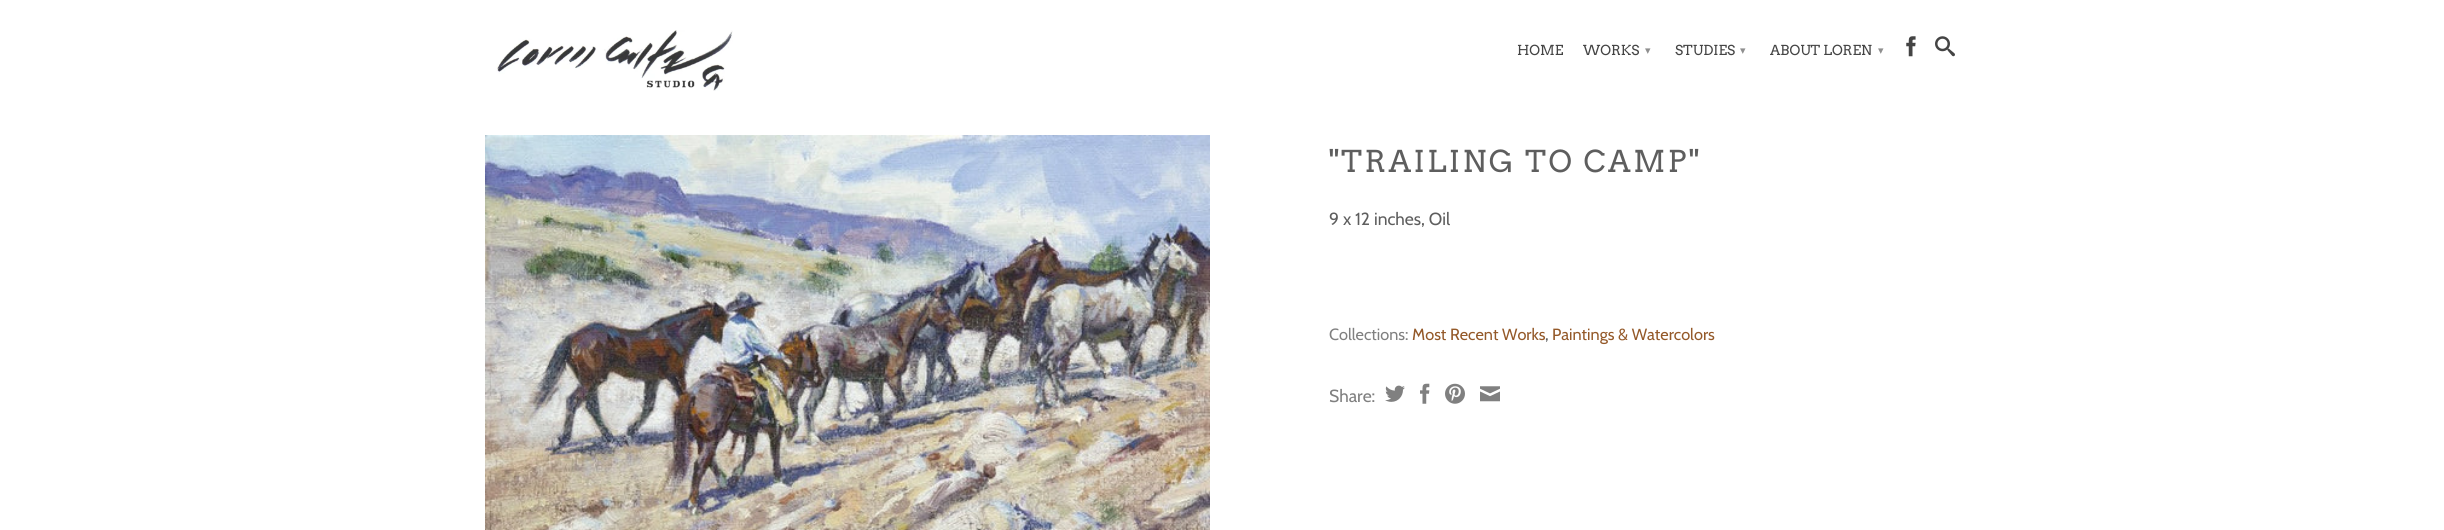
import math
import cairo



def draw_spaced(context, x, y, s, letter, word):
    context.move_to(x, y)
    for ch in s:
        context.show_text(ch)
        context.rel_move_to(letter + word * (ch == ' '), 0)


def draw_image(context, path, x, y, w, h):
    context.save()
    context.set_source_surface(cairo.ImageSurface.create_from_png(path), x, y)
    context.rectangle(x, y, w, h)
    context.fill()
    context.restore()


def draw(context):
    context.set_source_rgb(1, 1, 1)
    context.paint()
    draw_image(context, "images/1.png", 496, 30, 237, 61)
    draw_image(context, "images/2.png", 1906, 36, 10, 21)
    draw_image(context, "images/3.png", 1935, 36, 20, 21)
    draw_image(context, "images/4.png", 485, 135, 725, 395)
    draw_image(context, "images/5.png", 1385, 385, 20, 17)
    draw_image(context, "images/6.png", 1420, 383, 10, 21)
    draw_image(context, "images/7.png", 1445, 383, 20, 21)
    draw_image(context, "images/8.png", 1480, 386, 20, 16)
    context.select_font_face("Arvo")
    context.set_font_size(13.75)
    context.set_source_rgb(68 / 255, 68 / 255, 68 / 255)
    context.move_to(1517, 55)
    context.show_text("HOME")
    context.move_to(1583, 55)
    context.show_text("WORKS")
    context.select_font_face("DejaVu Sans")
    context.set_font_size(11)
    context.set_source_rgb(143 / 255, 143 / 255, 143 / 255)
    context.move_to(1645, 54)
    context.show_text("▾")
    context.select_font_face("Arvo")
    context.set_font_size(13.75)
    context.set_source_rgb(68 / 255, 68 / 255, 68 / 255)
    context.move_to(1675, 55)
    context.show_text("STUDIES")
    context.select_font_face("DejaVu Sans")
    context.set_font_size(11)
    context.set_source_rgb(143 / 255, 143 / 255, 143 / 255)
    context.move_to(1740, 54)
    context.show_text("▾")
    context.select_font_face("Arvo")
    context.set_font_size(13.75)
    context.set_source_rgb(68 / 255, 68 / 255, 68 / 255)
    context.move_to(1770, 55)
    context.show_text("ABOUT LOREN")
    context.select_font_face("DejaVu Sans")
    context.set_font_size(11)
    context.set_source_rgb(143 / 255, 143 / 255, 143 / 255)
    context.move_to(1878, 54)
    context.show_text("▾")
    context.select_font_face("Arvo")
    context.set_font_size(30)
    context.set_source_rgb(94 / 255, 94 / 255, 94 / 255)
    draw_spaced(context, 1329, 172, "\"TRAILING TO CAMP\"", 2.5, 0)
    context.select_font_face("Cabin")
    context.set_font_size(17.5)
    context.move_to(1329, 225)
    context.show_text("9 x 12 inches, Oil")
    context.set_font_size(16.25)
    context.set_source_rgb(128 / 255, 128 / 255, 128 / 255)
    context.move_to(1329, 340)
    context.show_text("Collections:")
    context.set_source_rgb(148 / 255, 89 / 255, 41 / 255)
    context.move_to(1412, 340)
    context.show_text("Most Recent Works")
    context.set_source_rgb(94 / 255, 94 / 255, 94 / 255)
    context.move_to(1545, 340)
    context.show_text(",")
    context.set_source_rgb(148 / 255, 89 / 255, 41 / 255)
    context.move_to(1552, 340)
    context.show_text("Paintings & Watercolors")
    context.set_font_size(17.5)
    context.set_source_rgb(128 / 255, 128 / 255, 128 / 255)
    context.move_to(1329, 402)
    context.show_text("Share:")


surface = cairo.ImageSurface(cairo.Format.RGB24, 2444, 530)
context = cairo.Context(surface)
options = cairo.FontOptions()
options.set_hint_metrics(cairo.HintMetrics.OFF)
options.set_hint_style(cairo.HintStyle.NONE)
context.set_font_options(options)
context.set_miter_limit(4)
draw(context)
surface.write_to_png("out.png")
